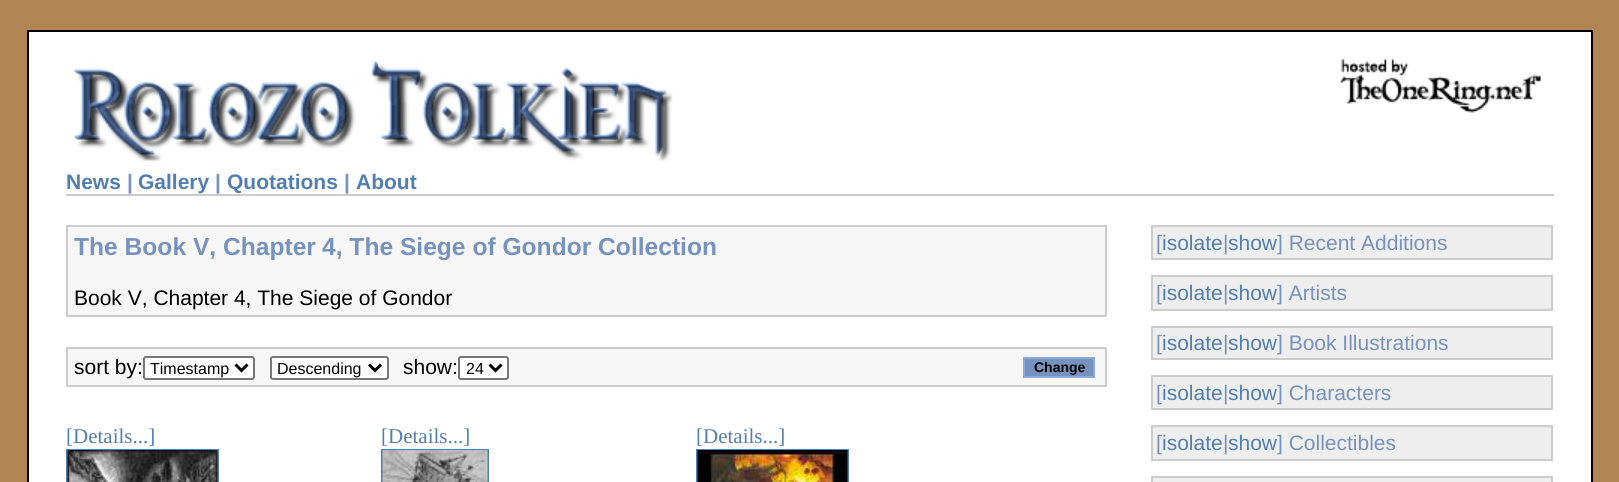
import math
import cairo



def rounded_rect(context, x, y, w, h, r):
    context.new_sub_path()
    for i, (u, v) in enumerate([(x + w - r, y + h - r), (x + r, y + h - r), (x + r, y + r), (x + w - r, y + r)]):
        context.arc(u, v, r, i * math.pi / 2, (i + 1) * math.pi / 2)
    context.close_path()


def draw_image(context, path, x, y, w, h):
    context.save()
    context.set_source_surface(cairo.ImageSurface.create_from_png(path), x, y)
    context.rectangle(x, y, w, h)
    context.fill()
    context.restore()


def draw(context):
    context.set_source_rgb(176 / 255, 133 / 255, 83 / 255)
    context.paint()
    context.set_source_rgb(1, 1, 1)
    context.rectangle(28, 31, 1564, 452)
    context.fill_preserve()
    context.set_source_rgb(0, 0, 0)
    context.stroke()
    draw_image(context, "images/1.png", 73, 60, 600, 101)
    draw_image(context, "images/2.png", 1339, 58, 202, 55)
    context.set_source_rgb(204 / 255, 204 / 255, 204 / 255)
    context.rectangle(66, 194, 1488, 2)
    context.fill()
    context.set_source_rgb(247 / 255, 247 / 255, 247 / 255)
    context.rectangle(67, 226, 1039, 90)
    context.fill_preserve()
    context.set_source_rgb(204 / 255, 204 / 255, 204 / 255)
    context.stroke()
    context.set_source_rgb(247 / 255, 247 / 255, 247 / 255)
    context.rectangle(67, 348, 1039, 38)
    context.fill_preserve()
    context.set_source_rgb(204 / 255, 204 / 255, 204 / 255)
    context.stroke()
    context.set_source_rgb(1, 1, 1)
    rounded_rect(context, 144, 357, 110, 22, 2)
    context.fill_preserve()
    context.set_source_rgb(118 / 255, 118 / 255, 118 / 255)
    context.stroke()
    context.new_path()
    context.move_to(235.5, 364.5)
    context.line_to(241.5, 370.5)
    context.line_to(247.5, 364.5)
    context.set_source_rgb(0, 0, 0)
    context.set_line_width(3)
    context.stroke()
    context.set_source_rgb(1, 1, 1)
    rounded_rect(context, 271, 357, 117, 22, 2)
    context.fill_preserve()
    context.set_source_rgb(118 / 255, 118 / 255, 118 / 255)
    context.set_line_width(2)
    context.stroke()
    context.new_path()
    context.move_to(369, 364.5)
    context.line_to(375, 370.5)
    context.line_to(381, 364.5)
    context.set_source_rgb(0, 0, 0)
    context.set_line_width(3)
    context.stroke()
    context.set_source_rgb(1, 1, 1)
    rounded_rect(context, 459, 357, 49, 22, 2)
    context.fill_preserve()
    context.set_source_rgb(118 / 255, 118 / 255, 118 / 255)
    context.set_line_width(2)
    context.stroke()
    context.new_path()
    context.move_to(489.5, 364.5)
    context.line_to(495.5, 370.5)
    context.line_to(501.5, 364.5)
    context.set_source_rgb(0, 0, 0)
    context.set_line_width(3)
    context.stroke()
    context.set_source_rgb(119 / 255, 146 / 255, 188 / 255)
    context.rectangle(1024, 358, 70, 19)
    context.fill_preserve()
    context.set_source_rgb(136 / 255, 170 / 255, 221 / 255)
    context.set_line_width(2)
    context.stroke()
    context.rectangle(67, 450, 151, 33)
    context.set_source_rgb(83 / 255, 126 / 255, 176 / 255)
    context.stroke()
    draw_image(context, "images/3.png", 67, 450, 151, 32)
    context.rectangle(382, 450, 106, 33)
    context.stroke()
    draw_image(context, "images/4.png", 382, 450, 106, 32)
    context.rectangle(697, 450, 151, 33)
    context.stroke()
    draw_image(context, "images/5.png", 697, 450, 151, 32)
    context.set_source_rgb(238 / 255, 238 / 255, 238 / 255)
    context.rectangle(1152, 226, 400, 33)
    context.fill_preserve()
    context.set_source_rgb(204 / 255, 204 / 255, 204 / 255)
    context.stroke()
    context.set_source_rgb(238 / 255, 238 / 255, 238 / 255)
    context.rectangle(1152, 276, 400, 34)
    context.fill_preserve()
    context.set_source_rgb(204 / 255, 204 / 255, 204 / 255)
    context.stroke()
    context.set_source_rgb(238 / 255, 238 / 255, 238 / 255)
    context.rectangle(1152, 327, 400, 32)
    context.fill_preserve()
    context.set_source_rgb(204 / 255, 204 / 255, 204 / 255)
    context.stroke()
    context.set_source_rgb(238 / 255, 238 / 255, 238 / 255)
    context.rectangle(1152, 376, 400, 33)
    context.fill_preserve()
    context.set_source_rgb(204 / 255, 204 / 255, 204 / 255)
    context.stroke()
    context.set_source_rgb(238 / 255, 238 / 255, 238 / 255)
    context.rectangle(1152, 426, 400, 34)
    context.fill_preserve()
    context.set_source_rgb(204 / 255, 204 / 255, 204 / 255)
    context.stroke()
    context.set_source_rgb(238 / 255, 238 / 255, 238 / 255)
    context.rectangle(1152, 477, 400, 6)
    context.fill_preserve()
    context.set_source_rgb(204 / 255, 204 / 255, 204 / 255)
    context.stroke()
    context.select_font_face("Liberation Sans", cairo.FontSlant.NORMAL, cairo.FontWeight.BOLD)
    context.set_font_size(21)
    context.set_source_rgb(83 / 255, 126 / 255, 176 / 255)
    context.move_to(66, 189)
    context.show_text("News")
    context.set_source_rgb(119 / 255, 146 / 255, 188 / 255)
    context.move_to(127, 189)
    context.show_text("|")
    context.set_source_rgb(83 / 255, 126 / 255, 176 / 255)
    context.move_to(138, 189)
    context.show_text("Gallery")
    context.set_source_rgb(119 / 255, 146 / 255, 188 / 255)
    context.move_to(215, 189)
    context.show_text("|")
    context.set_source_rgb(83 / 255, 126 / 255, 176 / 255)
    context.move_to(227, 189)
    context.show_text("Quotations")
    context.set_source_rgb(119 / 255, 146 / 255, 188 / 255)
    context.move_to(344, 189)
    context.show_text("|")
    context.set_source_rgb(83 / 255, 126 / 255, 176 / 255)
    context.move_to(356, 189)
    context.show_text("About")
    context.set_font_size(24.6)
    context.set_source_rgb(119 / 255, 146 / 255, 188 / 255)
    context.move_to(74, 255)
    context.show_text("The Book V, Chapter")
    context.move_to(322, 255)
    context.show_text("4, The Siege of Gondor Collection")
    context.select_font_face("Liberation Sans")
    context.set_font_size(21)
    context.set_source_rgb(0, 0, 0)
    context.move_to(74, 305)
    context.show_text("Book V, Chapter 4, The Siege of Gondor")
    context.move_to(74, 374)
    context.show_text("sort by:")
    context.set_font_size(16)
    context.move_to(150, 374)
    context.show_text("Timestamp")
    context.move_to(277, 374)
    context.show_text("Descending")
    context.set_font_size(21)
    context.move_to(403, 374)
    context.show_text("show:")
    context.set_font_size(16)
    context.move_to(466, 374)
    context.show_text("24")
    context.select_font_face("Liberation Sans", cairo.FontSlant.NORMAL, cairo.FontWeight.BOLD)
    context.set_font_size(14)
    context.move_to(1034, 372)
    context.show_text("Change")
    context.select_font_face("Liberation Serif")
    context.set_font_size(21)
    context.set_source_rgb(83 / 255, 126 / 255, 176 / 255)
    context.move_to(66, 443)
    context.show_text("[Details...]")
    context.move_to(381, 443)
    context.show_text("[Details...]")
    context.move_to(696, 443)
    context.show_text("[Details...]")
    context.select_font_face("Liberation Sans")
    context.set_source_rgb(119 / 255, 146 / 255, 188 / 255)
    context.move_to(1156, 250)
    context.show_text("[")
    context.set_source_rgb(83 / 255, 126 / 255, 176 / 255)
    context.move_to(1162, 250)
    context.show_text("isolate")
    context.set_source_rgb(119 / 255, 146 / 255, 188 / 255)
    context.move_to(1223, 250)
    context.show_text("|")
    context.set_source_rgb(83 / 255, 126 / 255, 176 / 255)
    context.move_to(1228, 250)
    context.show_text("show")
    context.set_source_rgb(119 / 255, 146 / 255, 188 / 255)
    context.move_to(1277, 250)
    context.show_text("] Recent Additions")
    context.move_to(1156, 300)
    context.show_text("[")
    context.set_source_rgb(83 / 255, 126 / 255, 176 / 255)
    context.move_to(1162, 300)
    context.show_text("isolate")
    context.set_source_rgb(119 / 255, 146 / 255, 188 / 255)
    context.move_to(1223, 300)
    context.show_text("|")
    context.set_source_rgb(83 / 255, 126 / 255, 176 / 255)
    context.move_to(1228, 300)
    context.show_text("show")
    context.set_source_rgb(119 / 255, 146 / 255, 188 / 255)
    context.move_to(1277, 300)
    context.show_text("] Artists")
    context.move_to(1156, 350)
    context.show_text("[")
    context.set_source_rgb(83 / 255, 126 / 255, 176 / 255)
    context.move_to(1162, 350)
    context.show_text("isolate")
    context.set_source_rgb(119 / 255, 146 / 255, 188 / 255)
    context.move_to(1223, 350)
    context.show_text("|")
    context.set_source_rgb(83 / 255, 126 / 255, 176 / 255)
    context.move_to(1228, 350)
    context.show_text("show")
    context.set_source_rgb(119 / 255, 146 / 255, 188 / 255)
    context.move_to(1277, 350)
    context.show_text("] Book Illustrations")
    context.move_to(1156, 400)
    context.show_text("[")
    context.set_source_rgb(83 / 255, 126 / 255, 176 / 255)
    context.move_to(1162, 400)
    context.show_text("isolate")
    context.set_source_rgb(119 / 255, 146 / 255, 188 / 255)
    context.move_to(1223, 400)
    context.show_text("|")
    context.set_source_rgb(83 / 255, 126 / 255, 176 / 255)
    context.move_to(1228, 400)
    context.show_text("show")
    context.set_source_rgb(119 / 255, 146 / 255, 188 / 255)
    context.move_to(1277, 400)
    context.show_text("] Characters")
    context.move_to(1156, 450)
    context.show_text("[")
    context.set_source_rgb(83 / 255, 126 / 255, 176 / 255)
    context.move_to(1162, 450)
    context.show_text("isolate")
    context.set_source_rgb(119 / 255, 146 / 255, 188 / 255)
    context.move_to(1223, 450)
    context.show_text("|")
    context.set_source_rgb(83 / 255, 126 / 255, 176 / 255)
    context.move_to(1228, 450)
    context.show_text("show")
    context.set_source_rgb(119 / 255, 146 / 255, 188 / 255)
    context.move_to(1277, 450)
    context.show_text("] Collectibles")


surface = cairo.ImageSurface(cairo.Format.RGB24, 1619, 482)
context = cairo.Context(surface)
options = cairo.FontOptions()
options.set_hint_metrics(cairo.HintMetrics.OFF)
options.set_hint_style(cairo.HintStyle.NONE)
context.set_font_options(options)
context.set_miter_limit(4)
draw(context)
surface.write_to_png("out.png")
